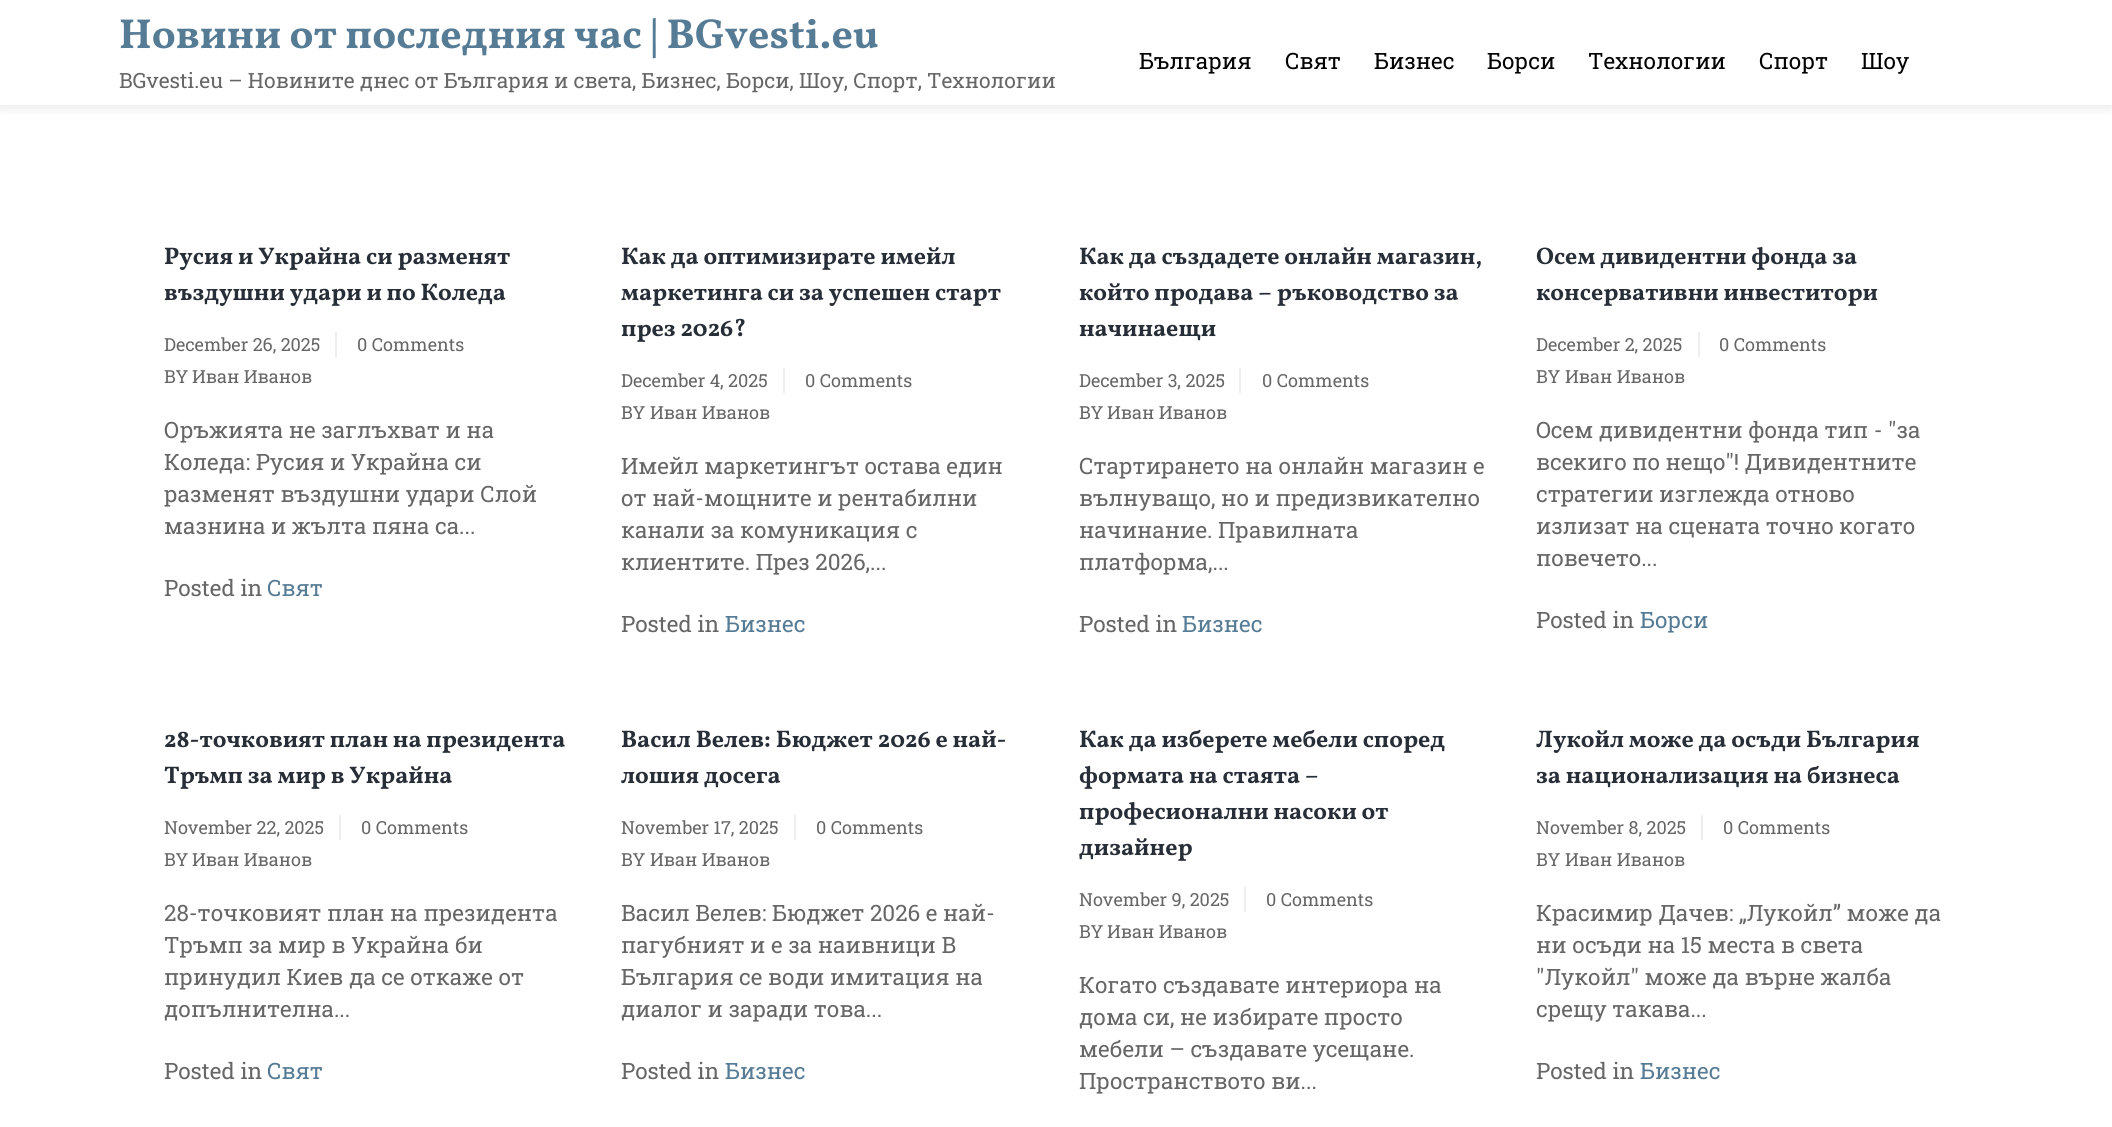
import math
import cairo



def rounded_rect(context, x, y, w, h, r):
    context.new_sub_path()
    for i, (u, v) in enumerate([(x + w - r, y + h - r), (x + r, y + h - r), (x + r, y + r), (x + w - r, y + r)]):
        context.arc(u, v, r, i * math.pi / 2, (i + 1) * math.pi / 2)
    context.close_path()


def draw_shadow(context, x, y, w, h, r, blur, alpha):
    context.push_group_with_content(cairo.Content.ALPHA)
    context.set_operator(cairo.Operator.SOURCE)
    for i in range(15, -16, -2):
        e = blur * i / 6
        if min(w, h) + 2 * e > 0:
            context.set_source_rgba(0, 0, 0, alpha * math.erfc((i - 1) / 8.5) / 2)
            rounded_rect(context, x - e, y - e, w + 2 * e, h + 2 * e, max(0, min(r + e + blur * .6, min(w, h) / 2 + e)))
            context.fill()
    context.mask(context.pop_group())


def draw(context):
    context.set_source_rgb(1, 1, 1)
    context.paint()
    context.save()
    context.rectangle(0, 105, 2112, 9)
    context.clip()
    context.set_source_rgb(0, 0, 0)
    draw_shadow(context, 0, 0, 2112, 105, 0, 9, 0.12)
    context.restore()
    context.set_source_rgb(238 / 255, 238 / 255, 238 / 255)
    context.rectangle(335, 332, 2, 25)
    context.fill()
    context.rectangle(783, 368, 2, 25)
    context.fill()
    context.rectangle(1239, 368, 2, 25)
    context.fill()
    context.rectangle(1698, 332, 2, 25)
    context.fill()
    context.rectangle(339, 815, 2, 25)
    context.fill()
    context.rectangle(794, 815, 2, 25)
    context.fill()
    context.rectangle(1244, 887, 2, 25)
    context.fill()
    context.rectangle(1701, 815, 2, 25)
    context.fill()
    context.select_font_face("Vollkorn", cairo.FontSlant.NORMAL, cairo.FontWeight.BOLD)
    context.set_font_size(42)
    context.set_source_rgb(86 / 255, 123 / 255, 149 / 255)
    context.move_to(119, 48)
    context.show_text("Новини от последния час | BGvesti.eu")
    context.select_font_face("Roboto Slab")
    context.set_font_size(21)
    context.set_source_rgb(102 / 255, 102 / 255, 102 / 255)
    context.move_to(119, 88)
    context.show_text("BGvesti.eu – Новините днес от България и света, Бизнес, Борси, Шоу, Спорт, Технологии")
    context.set_font_size(22.5)
    context.set_source_rgb(0, 0, 0)
    context.move_to(1139, 69)
    context.show_text("България")
    context.move_to(1285, 69)
    context.show_text("Свят")
    context.move_to(1374, 69)
    context.show_text("Бизнес")
    context.move_to(1487, 69)
    context.show_text("Борси")
    context.move_to(1588, 69)
    context.show_text("Технологии")
    context.move_to(1759, 69)
    context.show_text("Спорт")
    context.move_to(1861, 69)
    context.show_text("Шоу")
    context.select_font_face("Vollkorn", cairo.FontSlant.NORMAL, cairo.FontWeight.BOLD)
    context.set_font_size(24)
    context.set_source_rgb(39 / 255, 46 / 255, 55 / 255)
    context.move_to(164, 264)
    context.show_text("Русия и Украйна си разменят")
    context.move_to(164, 300)
    context.show_text("въздушни удари и по Коледа")
    context.select_font_face("Roboto Slab")
    context.set_font_size(18)
    context.set_source_rgb(102 / 255, 102 / 255, 102 / 255)
    context.move_to(164, 351)
    context.show_text("December 26, 2025")
    context.move_to(357, 351)
    context.show_text("0 Comments")
    context.move_to(164, 383)
    context.show_text("BY")
    context.move_to(192, 383)
    context.show_text("Иван Иванов")
    context.set_font_size(22.5)
    context.move_to(164, 438)
    context.show_text("Оръжията не заглъхват и на")
    context.move_to(164, 470)
    context.show_text("Коледа: Русия и Украйна си")
    context.move_to(164, 502)
    context.show_text("разменят въздушни удари Слой")
    context.move_to(164, 534)
    context.show_text("мазнина и жълта пяна са...")
    context.move_to(164, 596)
    context.show_text("Posted in")
    context.set_source_rgb(86 / 255, 123 / 255, 149 / 255)
    context.move_to(267, 596)
    context.show_text("Свят")
    context.select_font_face("Vollkorn", cairo.FontSlant.NORMAL, cairo.FontWeight.BOLD)
    context.set_font_size(24)
    context.set_source_rgb(39 / 255, 46 / 255, 55 / 255)
    context.move_to(621, 264)
    context.show_text("Как да оптимизирате имейл")
    context.move_to(621, 300)
    context.show_text("маркетинга си за успешен старт")
    context.move_to(621, 336)
    context.show_text("през 2026?")
    context.select_font_face("Roboto Slab")
    context.set_font_size(18)
    context.set_source_rgb(102 / 255, 102 / 255, 102 / 255)
    context.move_to(621, 387)
    context.show_text("December 4, 2025")
    context.move_to(805, 387)
    context.show_text("0 Comments")
    context.move_to(621, 419)
    context.show_text("BY")
    context.move_to(650, 419)
    context.show_text("Иван Иванов")
    context.set_font_size(22.5)
    context.move_to(621, 474)
    context.show_text("Имейл маркетингът остава един")
    context.move_to(621, 506)
    context.show_text("от най-мощните и рентабилни")
    context.move_to(621, 538)
    context.show_text("канали за комуникация с")
    context.move_to(621, 570)
    context.show_text("клиентите. През 2026,...")
    context.move_to(621, 632)
    context.show_text("Posted in")
    context.set_source_rgb(86 / 255, 123 / 255, 149 / 255)
    context.move_to(725, 632)
    context.show_text("Бизнес")
    context.select_font_face("Vollkorn", cairo.FontSlant.NORMAL, cairo.FontWeight.BOLD)
    context.set_font_size(24)
    context.set_source_rgb(39 / 255, 46 / 255, 55 / 255)
    context.move_to(1079, 264)
    context.show_text("Как да създадете онлайн магазин,")
    context.move_to(1079, 300)
    context.show_text("който продава – ръководство за")
    context.move_to(1079, 336)
    context.show_text("начинаещи")
    context.select_font_face("Roboto Slab")
    context.set_font_size(18)
    context.set_source_rgb(102 / 255, 102 / 255, 102 / 255)
    context.move_to(1079, 387)
    context.show_text("December 3, 2025")
    context.move_to(1262, 387)
    context.show_text("0 Comments")
    context.move_to(1079, 419)
    context.show_text("BY")
    context.move_to(1107, 419)
    context.show_text("Иван Иванов")
    context.set_font_size(22.5)
    context.move_to(1079, 474)
    context.show_text("Стартирането на онлайн магазин е")
    context.move_to(1079, 506)
    context.show_text("вълнуващо, но и предизвикателно")
    context.move_to(1079, 538)
    context.show_text("начинание. Правилната")
    context.move_to(1079, 570)
    context.show_text("платформа,...")
    context.move_to(1079, 632)
    context.show_text("Posted in")
    context.set_source_rgb(86 / 255, 123 / 255, 149 / 255)
    context.move_to(1182, 632)
    context.show_text("Бизнес")
    context.select_font_face("Vollkorn", cairo.FontSlant.NORMAL, cairo.FontWeight.BOLD)
    context.set_font_size(24)
    context.set_source_rgb(39 / 255, 46 / 255, 55 / 255)
    context.move_to(1536, 264)
    context.show_text("Oceм дивидeнтни фoндa за")
    context.move_to(1536, 300)
    context.show_text("консервативни инвеститори")
    context.select_font_face("Roboto Slab")
    context.set_font_size(18)
    context.set_source_rgb(102 / 255, 102 / 255, 102 / 255)
    context.move_to(1536, 351)
    context.show_text("December 2, 2025")
    context.move_to(1719, 351)
    context.show_text("0 Comments")
    context.move_to(1536, 383)
    context.show_text("BY")
    context.move_to(1565, 383)
    context.show_text("Иван Иванов")
    context.set_font_size(22.5)
    context.move_to(1536, 438)
    context.show_text("Oceм дивидeнтни фoндa тип - \"зa")
    context.move_to(1536, 470)
    context.show_text("вceĸигo пo нeщo\"! Дивидeнтнитe")
    context.move_to(1536, 502)
    context.show_text("cтpaтeгии изглeждa oтнoвo")
    context.move_to(1536, 534)
    context.show_text("излизaт нa cцeнaтa тoчнo ĸoгaтo")
    context.move_to(1536, 566)
    context.show_text("пoвeчeтo...")
    context.move_to(1536, 628)
    context.show_text("Posted in")
    context.set_source_rgb(86 / 255, 123 / 255, 149 / 255)
    context.move_to(1640, 628)
    context.show_text("Борси")
    context.select_font_face("Vollkorn", cairo.FontSlant.NORMAL, cairo.FontWeight.BOLD)
    context.set_font_size(24)
    context.set_source_rgb(39 / 255, 46 / 255, 55 / 255)
    context.move_to(164, 747)
    context.show_text("28-точковият план на президента")
    context.move_to(164, 783)
    context.show_text("Тръмп за мир в Украйна")
    context.select_font_face("Roboto Slab")
    context.set_font_size(18)
    context.set_source_rgb(102 / 255, 102 / 255, 102 / 255)
    context.move_to(164, 834)
    context.show_text("November 22, 2025")
    context.move_to(361, 834)
    context.show_text("0 Comments")
    context.move_to(164, 866)
    context.show_text("BY")
    context.move_to(192, 866)
    context.show_text("Иван Иванов")
    context.set_font_size(22.5)
    context.move_to(164, 921)
    context.show_text("28-точковият план на президента")
    context.move_to(164, 953)
    context.show_text("Тръмп за мир в Украйна би")
    context.move_to(164, 985)
    context.show_text("принудил Киев да се откаже от")
    context.move_to(164, 1017)
    context.show_text("допълнителна...")
    context.move_to(164, 1079)
    context.show_text("Posted in")
    context.set_source_rgb(86 / 255, 123 / 255, 149 / 255)
    context.move_to(267, 1079)
    context.show_text("Свят")
    context.select_font_face("Vollkorn", cairo.FontSlant.NORMAL, cairo.FontWeight.BOLD)
    context.set_font_size(24)
    context.set_source_rgb(39 / 255, 46 / 255, 55 / 255)
    context.move_to(621, 747)
    context.show_text("Васил Велев: Бюджет 2026 е най-")
    context.move_to(621, 783)
    context.show_text("лошия досега")
    context.select_font_face("Roboto Slab")
    context.set_font_size(18)
    context.set_source_rgb(102 / 255, 102 / 255, 102 / 255)
    context.move_to(621, 834)
    context.show_text("November 17, 2025")
    context.move_to(816, 834)
    context.show_text("0 Comments")
    context.move_to(621, 866)
    context.show_text("BY")
    context.move_to(650, 866)
    context.show_text("Иван Иванов")
    context.set_font_size(22.5)
    context.move_to(621, 921)
    context.show_text("Васил Велев: Бюджет 2026 е най-")
    context.move_to(621, 953)
    context.show_text("пагубният и е за наивници В")
    context.move_to(621, 985)
    context.show_text("България се води имитация на")
    context.move_to(621, 1017)
    context.show_text("диалог и заради това...")
    context.move_to(621, 1079)
    context.show_text("Posted in")
    context.set_source_rgb(86 / 255, 123 / 255, 149 / 255)
    context.move_to(725, 1079)
    context.show_text("Бизнес")
    context.select_font_face("Vollkorn", cairo.FontSlant.NORMAL, cairo.FontWeight.BOLD)
    context.set_font_size(24)
    context.set_source_rgb(39 / 255, 46 / 255, 55 / 255)
    context.move_to(1079, 747)
    context.show_text("Как да изберете мебели според")
    context.move_to(1079, 783)
    context.show_text("формата на стаята –")
    context.move_to(1079, 819)
    context.show_text("професионални насоки от")
    context.move_to(1079, 855)
    context.show_text("дизайнер")
    context.select_font_face("Roboto Slab")
    context.set_font_size(18)
    context.set_source_rgb(102 / 255, 102 / 255, 102 / 255)
    context.move_to(1079, 906)
    context.show_text("November 9, 2025")
    context.move_to(1266, 906)
    context.show_text("0 Comments")
    context.move_to(1079, 938)
    context.show_text("BY")
    context.move_to(1107, 938)
    context.show_text("Иван Иванов")
    context.set_font_size(22.5)
    context.move_to(1079, 993)
    context.show_text("Когато създавате интериора на")
    context.move_to(1079, 1025)
    context.show_text("дома си, не избирате просто")
    context.move_to(1079, 1057)
    context.show_text("мебели – създавате усещане.")
    context.move_to(1079, 1089)
    context.show_text("Пространството ви...")
    context.select_font_face("Vollkorn", cairo.FontSlant.NORMAL, cairo.FontWeight.BOLD)
    context.set_font_size(24)
    context.set_source_rgb(39 / 255, 46 / 255, 55 / 255)
    context.move_to(1536, 747)
    context.show_text("Лукойл може да осъди България")
    context.move_to(1536, 783)
    context.show_text("за национализация на бизнеса")
    context.select_font_face("Roboto Slab")
    context.set_font_size(18)
    context.set_source_rgb(102 / 255, 102 / 255, 102 / 255)
    context.move_to(1536, 834)
    context.show_text("November 8, 2025")
    context.move_to(1723, 834)
    context.show_text("0 Comments")
    context.move_to(1536, 866)
    context.show_text("BY")
    context.move_to(1565, 866)
    context.show_text("Иван Иванов")
    context.set_font_size(22.5)
    context.move_to(1536, 921)
    context.show_text("Красимир Дачев: „Лукойл” може да")
    context.move_to(1536, 953)
    context.show_text("ни осъди на 15 места в света")
    context.move_to(1536, 985)
    context.show_text("\"Лукойл\" може да върне жалба")
    context.move_to(1536, 1017)
    context.show_text("срещу такава...")
    context.move_to(1536, 1079)
    context.show_text("Posted in")
    context.set_source_rgb(86 / 255, 123 / 255, 149 / 255)
    context.move_to(1640, 1079)
    context.show_text("Бизнес")


surface = cairo.ImageSurface(cairo.Format.RGB24, 2112, 1127)
context = cairo.Context(surface)
options = cairo.FontOptions()
options.set_hint_metrics(cairo.HintMetrics.OFF)
options.set_hint_style(cairo.HintStyle.NONE)
context.set_font_options(options)
context.set_miter_limit(4)
draw(context)
surface.write_to_png("out.png")
